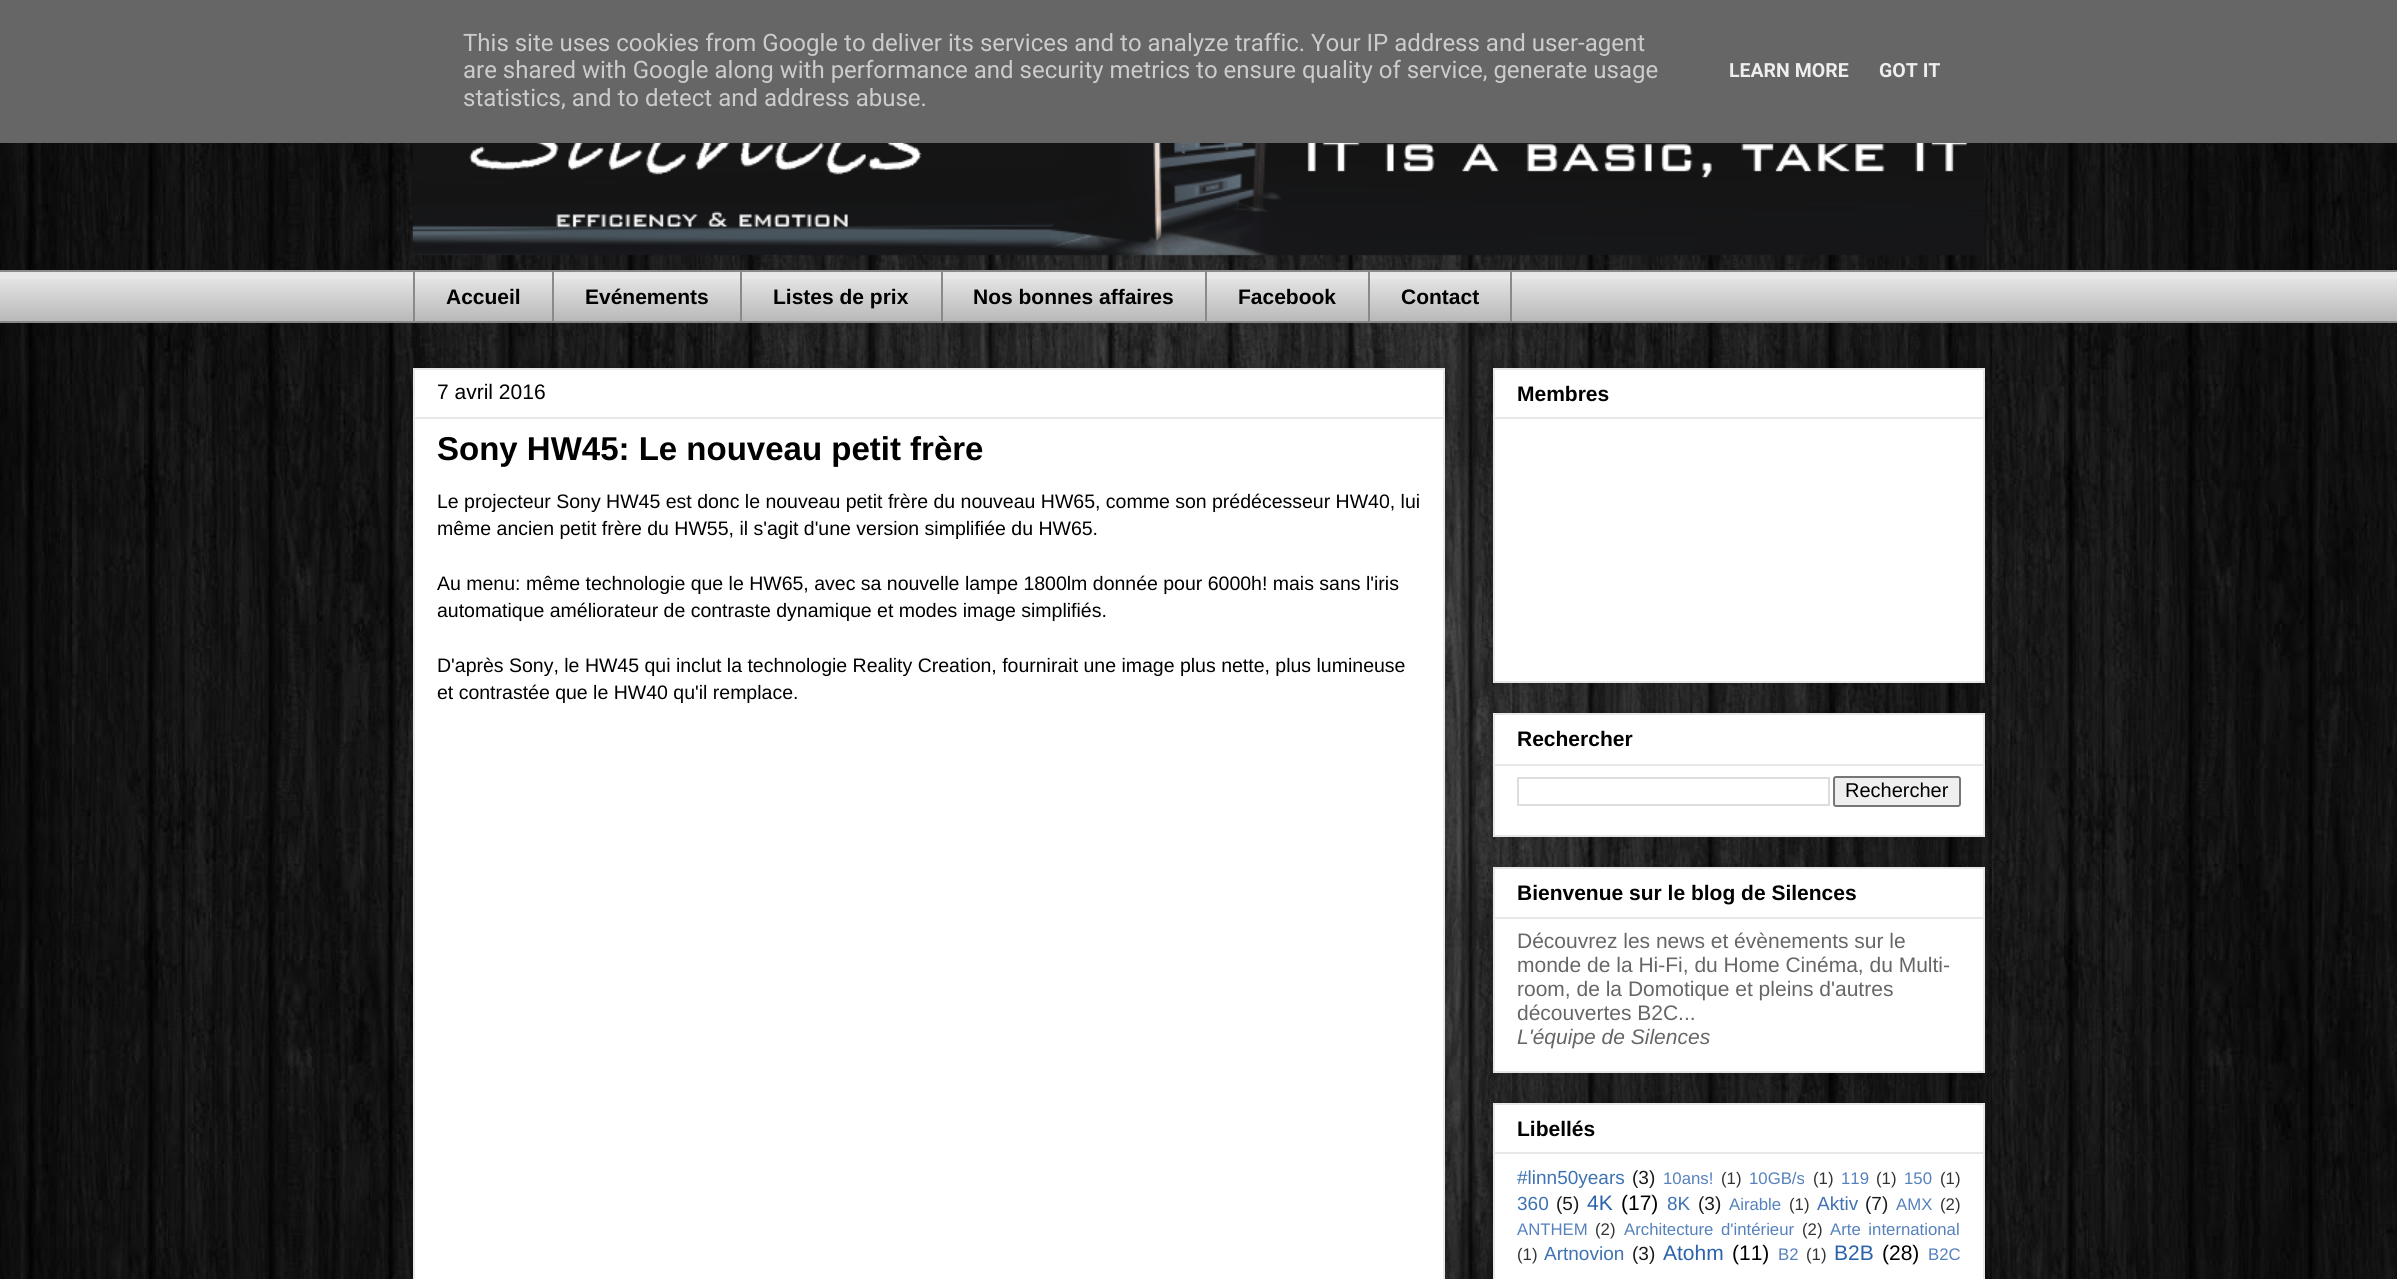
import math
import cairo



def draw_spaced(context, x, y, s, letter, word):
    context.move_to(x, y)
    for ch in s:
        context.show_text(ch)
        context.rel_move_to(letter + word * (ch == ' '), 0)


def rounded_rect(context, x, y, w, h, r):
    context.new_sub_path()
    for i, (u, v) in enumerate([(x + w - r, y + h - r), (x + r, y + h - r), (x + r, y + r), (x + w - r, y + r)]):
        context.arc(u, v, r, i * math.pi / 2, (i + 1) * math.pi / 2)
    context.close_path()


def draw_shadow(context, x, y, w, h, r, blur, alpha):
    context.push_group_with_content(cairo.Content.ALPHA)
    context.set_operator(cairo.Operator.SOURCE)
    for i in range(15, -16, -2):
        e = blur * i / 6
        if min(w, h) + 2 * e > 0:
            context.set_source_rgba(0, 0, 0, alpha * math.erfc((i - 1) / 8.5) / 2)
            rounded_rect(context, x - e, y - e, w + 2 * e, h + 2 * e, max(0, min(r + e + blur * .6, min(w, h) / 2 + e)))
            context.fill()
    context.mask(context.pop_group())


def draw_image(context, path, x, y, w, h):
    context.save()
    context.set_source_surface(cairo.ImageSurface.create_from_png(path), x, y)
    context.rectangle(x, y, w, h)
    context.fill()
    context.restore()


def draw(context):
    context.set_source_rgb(1, 1, 1)
    context.paint()
    draw_image(context, "images/1.png", 0, 143, 2397, 1136)
    context.set_source_rgb(102 / 255, 102 / 255, 102 / 255)
    context.rectangle(0, 0, 2397, 143)
    context.fill()
    draw_image(context, "images/2.png", 412, 143, 1573, 113)
    context.set_source_rgb(232 / 255, 232 / 255, 232 / 255)
    context.rectangle(0, 272, 2397, 49)
    context.fill()
    draw_image(context, "images/3.png", 0, 279, 2397, 42)
    context.set_source_rgb(137 / 255, 137 / 255, 137 / 255)
    context.rectangle(0, 270, 2397, 2)
    context.fill()
    context.rectangle(413, 270, 2, 53)
    context.fill()
    context.rectangle(552, 270, 2, 53)
    context.fill()
    context.rectangle(740, 270, 2, 53)
    context.fill()
    context.rectangle(941, 270, 2, 53)
    context.fill()
    context.rectangle(1205, 270, 2, 53)
    context.fill()
    context.rectangle(1369, 271, 142, 51)
    context.stroke()
    context.rectangle(0, 321, 2397, 2)
    context.fill()
    context.set_source_rgb(0, 0, 0)
    draw_shadow(context, 413, 368, 1032, 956, 0, 15, 0.2)
    context.set_source_rgb(1, 1, 1)
    context.rectangle(414, 369, 1030, 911)
    context.fill_preserve()
    context.set_source_rgb(232 / 255, 232 / 255, 232 / 255)
    context.stroke()
    context.rectangle(414, 417, 1029, 2)
    context.fill()
    context.set_source_rgb(0, 0, 0)
    draw_shadow(context, 1493, 368, 492, 315, 0, 15, 0.2)
    context.set_source_rgb(1, 1, 1)
    context.rectangle(1494, 369, 490, 313)
    context.fill_preserve()
    context.set_source_rgb(232 / 255, 232 / 255, 232 / 255)
    context.stroke()
    context.rectangle(1494, 417, 489, 2)
    context.fill()
    context.set_source_rgb(0, 0, 0)
    draw_shadow(context, 1493, 713, 492, 124, 0, 15, 0.2)
    context.set_source_rgb(1, 1, 1)
    context.rectangle(1494, 714, 490, 122)
    context.fill_preserve()
    context.set_source_rgb(232 / 255, 232 / 255, 232 / 255)
    context.stroke()
    context.rectangle(1494, 764, 489, 2)
    context.fill()
    context.rectangle(1518, 778, 311, 27)
    context.set_source_rgb(221 / 255, 221 / 255, 221 / 255)
    context.stroke()
    context.set_source_rgb(239 / 255, 239 / 255, 239 / 255)
    rounded_rect(context, 1834, 777, 126, 29, 2)
    context.fill_preserve()
    context.set_source_rgb(118 / 255, 118 / 255, 118 / 255)
    context.stroke()
    context.set_source_rgb(0, 0, 0)
    draw_shadow(context, 1493, 867, 492, 206, 0, 15, 0.2)
    context.set_source_rgb(1, 1, 1)
    context.rectangle(1494, 868, 490, 204)
    context.fill_preserve()
    context.set_source_rgb(232 / 255, 232 / 255, 232 / 255)
    context.stroke()
    context.rectangle(1494, 917, 489, 2)
    context.fill()
    context.set_source_rgb(0, 0, 0)
    draw_shadow(context, 1493, 1103, 492, 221, 0, 15, 0.2)
    context.set_source_rgb(1, 1, 1)
    context.rectangle(1494, 1104, 490, 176)
    context.fill_preserve()
    context.set_source_rgb(232 / 255, 232 / 255, 232 / 255)
    context.stroke()
    context.rectangle(1494, 1152, 489, 2)
    context.fill()
    context.select_font_face("Roboto")
    context.set_font_size(24)
    context.set_source_rgb(204 / 255, 204 / 255, 204 / 255)
    context.move_to(463, 51)
    context.show_text("This site uses cookies from Google to deliver its services and to analyze traffic. Your IP address and user-agent")
    context.move_to(463, 78)
    context.show_text("are shared with Google along with performance and security metrics to ensure quality of service, generate usage")
    context.move_to(463, 106)
    context.show_text("statistics, and to detect and address abuse.")
    context.select_font_face("Roboto", cairo.FontSlant.NORMAL, cairo.FontWeight.BOLD)
    context.set_font_size(19.5)
    context.set_source_rgb(238 / 255, 238 / 255, 238 / 255)
    context.move_to(1729, 77)
    context.show_text("LEARN MORE")
    context.move_to(1879, 77)
    context.show_text("GOT IT")
    context.select_font_face("Liberation Sans", cairo.FontSlant.NORMAL, cairo.FontWeight.BOLD)
    context.set_font_size(21)
    context.set_source_rgb(0, 0, 0)
    context.move_to(446, 304)
    context.show_text("Accueil")
    context.move_to(585, 304)
    context.show_text("Evénements")
    context.move_to(773, 304)
    context.show_text("Listes de prix")
    context.move_to(973, 304)
    context.show_text("Nos bonnes affaires")
    context.move_to(1238, 304)
    context.show_text("Facebook")
    context.move_to(1401, 304)
    context.show_text("Contact")
    context.select_font_face("Liberation Sans")
    context.move_to(437, 399)
    context.show_text("7 avril 2016")
    context.select_font_face("Liberation Sans", cairo.FontSlant.NORMAL, cairo.FontWeight.BOLD)
    context.set_font_size(33)
    context.move_to(437, 460)
    context.show_text("Sony HW45: Le nouveau petit frère")
    context.select_font_face("Liberation Sans")
    context.set_font_size(19.5)
    context.move_to(437, 508)
    context.show_text("Le projecteur Sony HW45 est donc le nouveau petit frère du nouveau HW65, comme son prédécesseur HW40, lui")
    context.move_to(437, 535)
    context.show_text("même ancien petit frère du HW55, il s'agit d'une version simplifiée du HW65.")
    context.move_to(437, 590)
    context.show_text("Au menu: même technologie que le HW65, avec sa nouvelle lampe 1800lm donnée pour 6000h! mais sans l'iris")
    context.move_to(437, 617)
    context.show_text("automatique améliorateur de contraste dynamique et modes image simplifiés.")
    context.move_to(437, 672)
    context.show_text("D'après Sony, le HW45 qui inclut la technologie Reality Creation, fournirait une image plus nette, plus lumineuse")
    context.move_to(437, 699)
    context.show_text("et contrastée que le HW40 qu'il remplace.")
    context.select_font_face("Liberation Sans", cairo.FontSlant.NORMAL, cairo.FontWeight.BOLD)
    context.set_font_size(21)
    context.move_to(1517, 401)
    context.show_text("Membres")
    context.move_to(1517, 746)
    context.show_text("Rechercher")
    context.select_font_face("Liberation Sans")
    context.set_font_size(20)
    context.move_to(1845, 797)
    context.show_text("Rechercher")
    context.select_font_face("Liberation Sans", cairo.FontSlant.NORMAL, cairo.FontWeight.BOLD)
    context.set_font_size(21)
    context.move_to(1517, 900)
    context.show_text("Bienvenue sur le blog de Silences")
    context.select_font_face("Liberation Sans")
    context.set_source_rgb(102 / 255, 102 / 255, 102 / 255)
    context.move_to(1517, 948)
    context.show_text("Découvrez les news et évènements sur le")
    context.move_to(1517, 972)
    context.show_text("monde de la Hi-Fi, du Home Cinéma, du Multi-")
    context.move_to(1517, 996)
    context.show_text("room, de la Domotique et pleins d'autres")
    context.move_to(1517, 1020)
    context.show_text("découvertes B2C...")
    context.select_font_face("Liberation Sans", cairo.FontSlant.ITALIC)
    context.move_to(1517, 1044)
    context.show_text("L'équipe de Silences")
    context.select_font_face("Liberation Sans", cairo.FontSlant.NORMAL, cairo.FontWeight.BOLD)
    context.set_source_rgb(0, 0, 0)
    context.move_to(1517, 1136)
    context.show_text("Libellés")
    context.select_font_face("Liberation Sans")
    context.set_font_size(19)
    context.set_source_rgb(63 / 255, 114 / 255, 179 / 255)
    context.move_to(1517, 1184)
    context.show_text("#linn50years")
    context.set_source_rgb(26 / 255, 26 / 255, 26 / 255)
    context.move_to(1632, 1184)
    context.show_text("(3)")
    context.set_font_size(16.75)
    context.set_source_rgb(85 / 255, 129 / 255, 188 / 255)
    context.move_to(1663, 1184)
    context.show_text("10ans!")
    context.set_source_rgb(51 / 255, 51 / 255, 51 / 255)
    context.move_to(1721, 1184)
    context.show_text("(1)")
    context.set_source_rgb(85 / 255, 129 / 255, 188 / 255)
    context.move_to(1749, 1184)
    context.show_text("10GB/s")
    context.set_source_rgb(51 / 255, 51 / 255, 51 / 255)
    context.move_to(1813, 1184)
    context.show_text("(1)")
    context.set_source_rgb(85 / 255, 129 / 255, 188 / 255)
    context.move_to(1841, 1184)
    context.show_text("119")
    context.set_source_rgb(51 / 255, 51 / 255, 51 / 255)
    context.move_to(1876, 1184)
    context.show_text("(1)")
    context.set_source_rgb(85 / 255, 129 / 255, 188 / 255)
    context.move_to(1904, 1184)
    context.show_text("150")
    context.set_source_rgb(51 / 255, 51 / 255, 51 / 255)
    context.move_to(1940, 1184)
    context.show_text("(1)")
    context.set_font_size(19)
    context.set_source_rgb(63 / 255, 114 / 255, 179 / 255)
    context.move_to(1517, 1210)
    context.show_text("360")
    context.set_source_rgb(26 / 255, 26 / 255, 26 / 255)
    context.move_to(1556, 1210)
    context.show_text("(5)")
    context.set_font_size(21)
    context.set_source_rgb(42 / 255, 98 / 255, 171 / 255)
    context.move_to(1587, 1210)
    context.show_text("4K")
    context.set_source_rgb(0, 0, 0)
    context.move_to(1621, 1210)
    context.show_text("(17)")
    context.set_font_size(19)
    context.set_source_rgb(63 / 255, 114 / 255, 179 / 255)
    context.move_to(1667, 1210)
    context.show_text("8K")
    context.set_source_rgb(26 / 255, 26 / 255, 26 / 255)
    context.move_to(1698, 1210)
    context.show_text("(3)")
    context.set_font_size(16.75)
    context.set_source_rgb(85 / 255, 129 / 255, 188 / 255)
    context.move_to(1729, 1210)
    context.show_text("Airable")
    context.set_source_rgb(51 / 255, 51 / 255, 51 / 255)
    context.move_to(1789, 1210)
    context.show_text("(1)")
    context.set_font_size(19)
    context.set_source_rgb(63 / 255, 114 / 255, 179 / 255)
    context.move_to(1817, 1210)
    context.show_text("Aktiv")
    context.set_source_rgb(26 / 255, 26 / 255, 26 / 255)
    context.move_to(1865, 1210)
    context.show_text("(7)")
    context.set_font_size(16.75)
    context.set_source_rgb(85 / 255, 129 / 255, 188 / 255)
    context.move_to(1896, 1210)
    context.show_text("AMX")
    context.set_source_rgb(51 / 255, 51 / 255, 51 / 255)
    context.move_to(1940, 1210)
    context.show_text("(2)")
    context.set_source_rgb(85 / 255, 129 / 255, 188 / 255)
    context.move_to(1517, 1235)
    context.show_text("ANTHEM")
    context.set_source_rgb(51 / 255, 51 / 255, 51 / 255)
    context.move_to(1595, 1235)
    context.show_text("(2)")
    context.set_source_rgb(85 / 255, 129 / 255, 188 / 255)
    draw_spaced(context, 1624, 1235, "Architecture d'intérieur", 0, 3)
    context.set_source_rgb(51 / 255, 51 / 255, 51 / 255)
    context.move_to(1802, 1235)
    context.show_text("(2)")
    context.set_source_rgb(85 / 255, 129 / 255, 188 / 255)
    draw_spaced(context, 1830, 1235, "Arte international", 0, 3)
    context.set_source_rgb(51 / 255, 51 / 255, 51 / 255)
    context.move_to(1517, 1260)
    context.show_text("(1)")
    context.set_font_size(19)
    context.set_source_rgb(63 / 255, 114 / 255, 179 / 255)
    context.move_to(1544, 1260)
    context.show_text("Artnovion")
    context.set_source_rgb(26 / 255, 26 / 255, 26 / 255)
    context.move_to(1632, 1260)
    context.show_text("(3)")
    context.set_font_size(21)
    context.set_source_rgb(42 / 255, 98 / 255, 171 / 255)
    context.move_to(1663, 1260)
    context.show_text("Atohm")
    context.set_source_rgb(0, 0, 0)
    context.move_to(1732, 1260)
    context.show_text("(11)")
    context.set_font_size(16.75)
    context.set_source_rgb(85 / 255, 129 / 255, 188 / 255)
    context.move_to(1778, 1260)
    context.show_text("B2")
    context.set_source_rgb(51 / 255, 51 / 255, 51 / 255)
    context.move_to(1806, 1260)
    context.show_text("(1)")
    context.set_font_size(21)
    context.set_source_rgb(42 / 255, 98 / 255, 171 / 255)
    context.move_to(1834, 1260)
    context.show_text("B2B")
    context.set_source_rgb(0, 0, 0)
    context.move_to(1882, 1260)
    context.show_text("(28)")
    context.set_font_size(16.75)
    context.set_source_rgb(85 / 255, 129 / 255, 188 / 255)
    context.move_to(1928, 1260)
    context.show_text("B2C")


surface = cairo.ImageSurface(cairo.Format.RGB24, 2397, 1279)
context = cairo.Context(surface)
options = cairo.FontOptions()
options.set_hint_metrics(cairo.HintMetrics.OFF)
options.set_hint_style(cairo.HintStyle.NONE)
context.set_font_options(options)
context.set_miter_limit(4)
draw(context)
surface.write_to_png("out.png")
